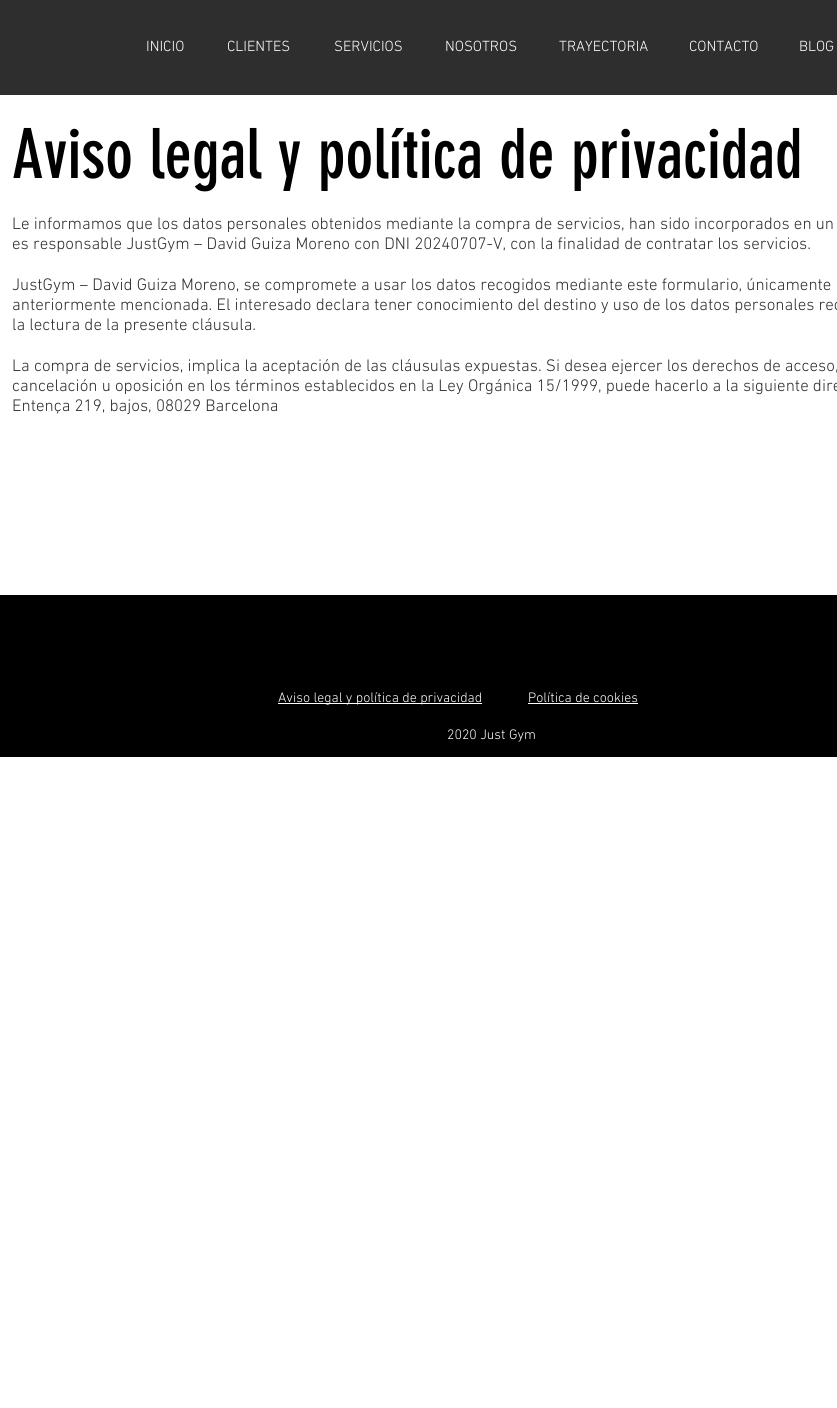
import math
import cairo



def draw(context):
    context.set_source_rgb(1, 1, 1)
    context.paint()
    context.set_source_rgb(47 / 255, 46 / 255, 46 / 255)
    context.rectangle(0, 0, 837, 95)
    context.fill()
    context.set_source_rgb(0, 0, 0)
    context.rectangle(0, 595, 837, 162)
    context.fill()
    context.set_source_rgb(1, 1, 1)
    context.rectangle(278, 703, 204, 1)
    context.fill()
    context.rectangle(528, 703, 110, 1)
    context.fill()
    context.select_font_face("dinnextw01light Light")
    context.set_font_size(15)
    context.move_to(146, 51)
    context.show_text("INICIO")
    context.move_to(227, 51)
    context.show_text("CLIENTES")
    context.move_to(334, 51)
    context.show_text("SERVICIOS")
    context.move_to(445, 51)
    context.show_text("NOSOTROS")
    context.move_to(559, 51)
    context.show_text("TRAYECTORIA")
    context.move_to(689, 51)
    context.show_text("CONTACTO")
    context.move_to(799, 51)
    context.show_text("BLOG")
    context.select_font_face("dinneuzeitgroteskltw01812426")
    context.set_font_size(68)
    context.set_source_rgb(0, 0, 0)
    context.move_to(12, 178)
    context.show_text("Aviso legal y política de privacidad")
    context.select_font_face("dinnextw01light Light")
    context.set_font_size(17)
    context.set_source_rgb(47 / 255, 46 / 255, 46 / 255)
    context.move_to(12, 229)
    context.show_text("Le informamos que los datos personales obtenidos mediante la compra de servicios, han sido incorporados en un")
    context.move_to(12, 249)
    context.show_text("es responsable JustGym – David Guiza Moreno con DNI 20240707-V, con la finalidad de contratar los servicios.")
    context.move_to(12, 290)
    context.show_text("JustGym – David Guiza Moreno, se compromete a usar los datos recogidos mediante este formulario, únicamente")
    context.move_to(12, 310)
    context.show_text("anteriormente mencionada. El interesado declara tener conocimiento del destino y uso de los datos personales rec")
    context.move_to(12, 330)
    context.show_text("la lectura de la presente cláusula.")
    context.move_to(12, 371)
    context.show_text("La compra de servicios, implica la aceptación de las cláusulas expuestas. Si desea ejercer los derechos de acceso,")
    context.move_to(12, 391)
    context.show_text("cancelación u oposición en los términos establecidos en la Ley Orgánica 15/1999, puede hacerlo a la siguiente dire")
    context.move_to(12, 411)
    context.show_text("Entença 219, bajos, 08029 Barcelona")
    context.set_font_size(14)
    context.set_source_rgb(1, 1, 1)
    context.move_to(278, 702)
    context.show_text("Aviso legal y política de privacidad")
    context.move_to(528, 702)
    context.show_text("Política de cookies")
    context.move_to(447, 739)
    context.show_text("2020 Just Gym")


surface = cairo.ImageSurface(cairo.Format.RGB24, 837, 1408)
context = cairo.Context(surface)
options = cairo.FontOptions()
options.set_hint_metrics(cairo.HintMetrics.OFF)
options.set_hint_style(cairo.HintStyle.NONE)
context.set_font_options(options)
context.set_miter_limit(4)
draw(context)
surface.write_to_png("out.png")
